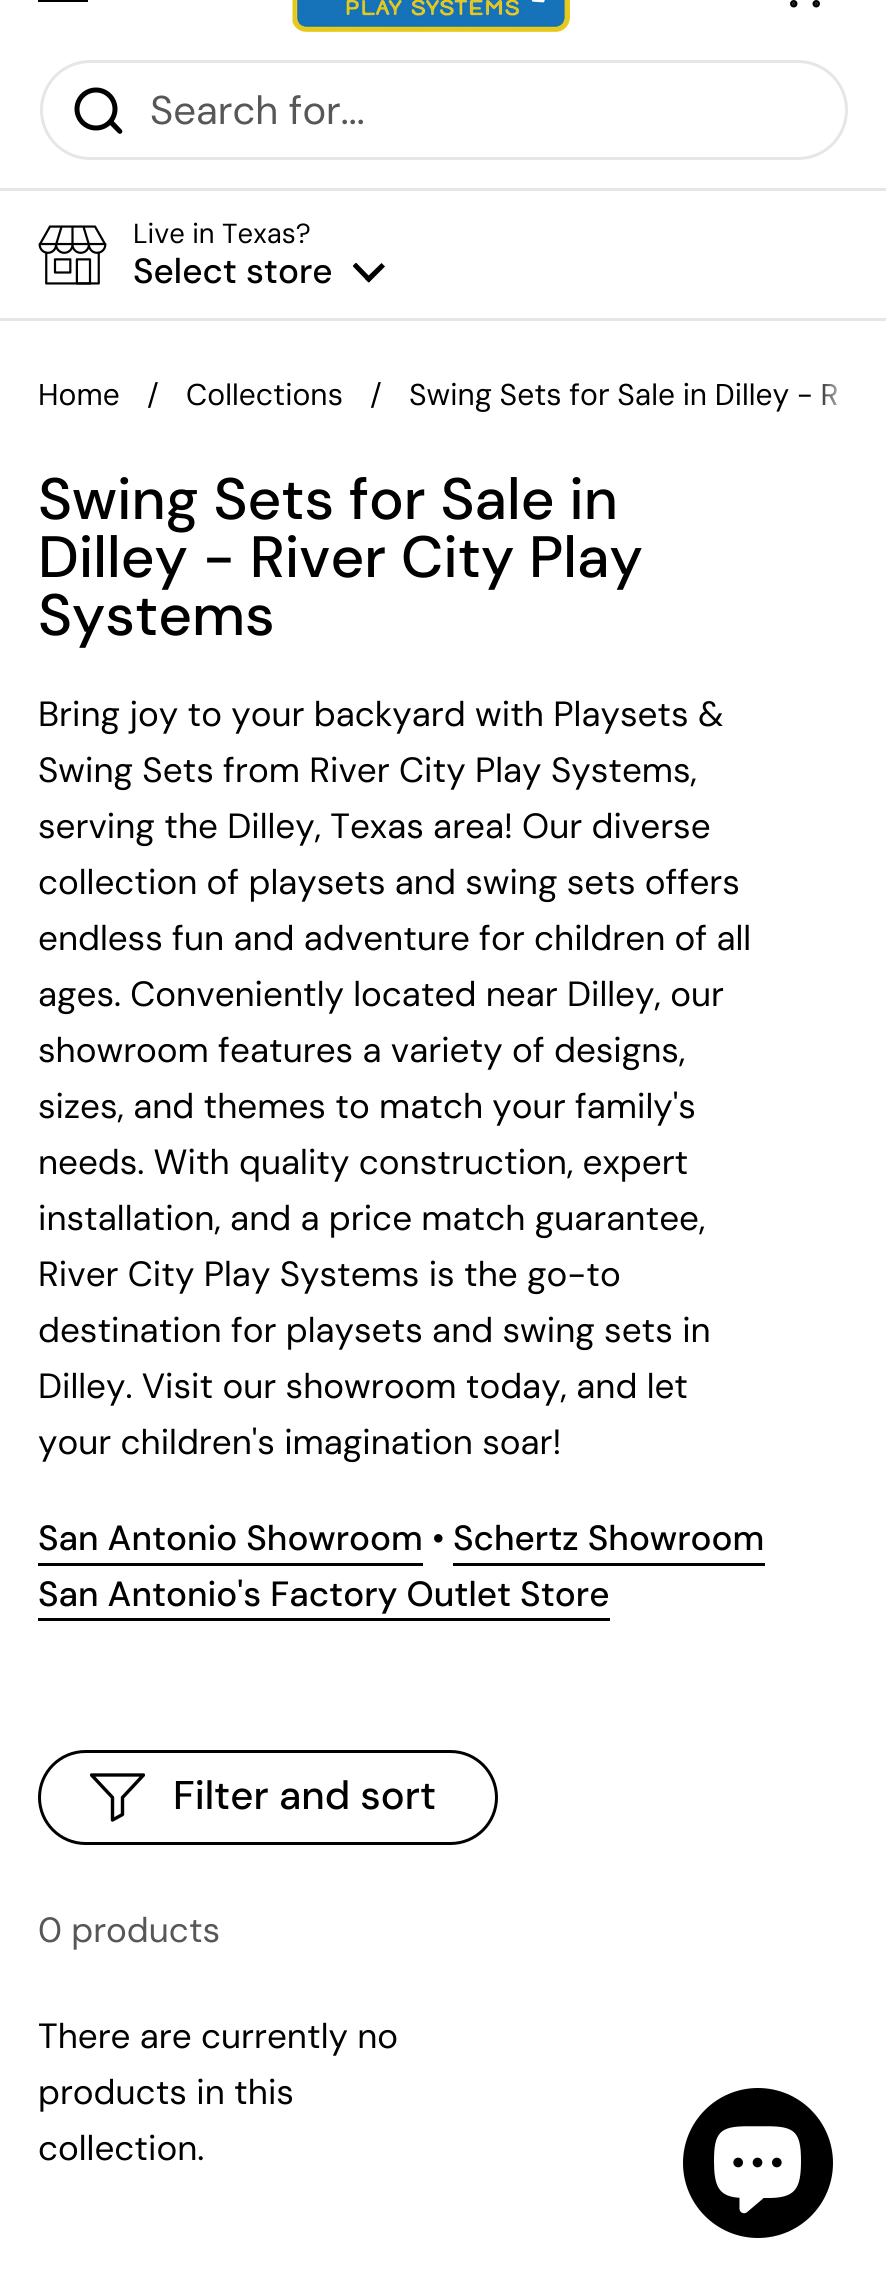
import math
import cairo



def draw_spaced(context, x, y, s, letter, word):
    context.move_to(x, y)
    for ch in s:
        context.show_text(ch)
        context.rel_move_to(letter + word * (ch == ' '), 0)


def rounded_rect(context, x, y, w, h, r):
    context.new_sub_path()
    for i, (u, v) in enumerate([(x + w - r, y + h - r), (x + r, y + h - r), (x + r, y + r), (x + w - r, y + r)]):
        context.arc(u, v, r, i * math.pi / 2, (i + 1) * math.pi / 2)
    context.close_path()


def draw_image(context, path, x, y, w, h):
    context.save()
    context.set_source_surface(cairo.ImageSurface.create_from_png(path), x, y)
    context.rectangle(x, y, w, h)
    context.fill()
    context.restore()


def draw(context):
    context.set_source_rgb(1, 1, 1)
    context.paint()
    context.set_source_rgb(0, 0, 0)
    context.rectangle(38, 0, 50, 2)
    context.fill()
    draw_image(context, "images/1.png", 292, 0, 278, 32)
    draw_image(context, "images/2.png", 790, 0, 30, 8)
    context.set_source_rgb(230 / 255, 230 / 255, 230 / 255)
    context.rectangle(0, 188, 886, 3)
    context.fill()
    rounded_rect(context, 41.5, 61.5, 805, 97, 48.5)
    context.set_line_width(3)
    context.stroke()
    context.arc(96, 109, 19, 0, 2 * math.pi)
    context.set_source_rgb(0, 0, 0)
    context.set_line_width(5)
    context.stroke()
    context.new_path()
    context.move_to(113, 120.5)
    context.line_to(111, 119)
    context.line_to(107.5, 122.5)
    context.line_to(109.5, 124.5)
    context.close_path()
    context.move_to(118, 133)
    context.curve_to(120.5, 135.5, 124, 132, 121.5, 129.5)
    context.close_path()
    context.move_to(109.5, 124.5)
    context.line_to(118, 133)
    context.line_to(121.5, 129.5)
    context.line_to(113, 120.5)
    context.close_path()
    context.fill()
    context.set_source_rgb(230 / 255, 230 / 255, 230 / 255)
    context.rectangle(0, 318, 886, 3)
    context.fill()
    draw_image(context, "images/3.png", 38, 225, 69, 60)
    context.save()
    context.rectangle(353, 263, 32, 20)
    context.clip()
    context.set_source_rgb(0, 0, 0)
    context.new_path()
    context.move_to(356, 262.5)
    context.line_to(372, 279)
    context.line_to(368.5, 282.5)
    context.line_to(352.5, 266)
    context.close_path()
    context.fill()
    context.restore()
    context.set_source_rgb(0, 0, 0)
    context.new_path()
    context.move_to(385, 266.5)
    context.line_to(369, 282.5)
    context.line_to(365, 279)
    context.line_to(381.5, 263)
    context.close_path()
    context.fill()
    context.rectangle(38, 1563, 385, 3)
    context.fill()
    context.rectangle(453, 1563, 312, 3)
    context.fill()
    context.rectangle(38, 1618, 572, 3)
    context.fill()
    rounded_rect(context, 39.5, 1751.5, 457, 92, 46)
    context.set_line_width(3)
    context.stroke()
    context.save()
    context.rectangle(90, 1753, 55, 90)
    context.clip()
    context.new_path()
    context.move_to(91.5, 1775)
    context.line_to(143.5, 1775)
    context.line_to(122.5, 1797.5)
    context.line_to(122.5, 1814.5)
    context.line_to(112.5, 1820)
    context.line_to(112.5, 1797.5)
    context.close_path()
    context.set_line_width(3.4)
    context.set_line_cap(cairo.LineCap.ROUND)
    context.set_line_join(cairo.LineJoin.ROUND)
    context.stroke()
    context.restore()
    context.arc(758, 2163, 75, 0, 2 * math.pi)
    context.fill()
    draw_image(context, "images/4.png", 714, 2126, 87, 88)
    context.select_font_face("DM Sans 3")
    context.set_font_size(40)
    context.set_source_rgb(87 / 255, 87 / 255, 87 / 255)
    context.move_to(150, 124)
    context.show_text("Search for...")
    context.select_font_face("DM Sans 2")
    context.set_font_size(27.5)
    context.set_source_rgb(0, 0, 0)
    context.move_to(133, 243)
    context.show_text("Live in Texas?")
    context.select_font_face("DM Sans 2 Medium")
    context.set_font_size(35)
    context.move_to(133, 283)
    context.show_text("Select store")
    context.select_font_face("DM Sans 2")
    context.set_font_size(30)
    context.move_to(38, 405)
    context.show_text("Home")
    context.move_to(147, 405)
    context.show_text("/")
    context.move_to(186, 405)
    context.show_text("Collections")
    context.move_to(370, 405)
    context.show_text("/")
    draw_spaced(context, 409, 405, "Swing Sets for Sale in Dilley - R", 0, -0.5)
    gradient = cairo.LinearGradient(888, 395, 813, 395)
    gradient.add_color_stop_rgba(0.5, 1, 1, 1, 1)
    gradient.add_color_stop_rgba(1, 1, 1, 1, 0)
    context.set_source(gradient)
    context.rectangle(823, 384, 15, 21)
    context.fill()
    context.select_font_face("DM Sans Medium")
    context.set_font_size(58.25)
    context.set_source_rgb(0, 0, 0)
    context.move_to(38, 519)
    context.show_text("Swing Sets for Sale in")
    context.move_to(38, 577)
    context.show_text("Dilley - River City Play")
    context.move_to(38, 635)
    context.show_text("Systems")
    context.select_font_face("DM Sans")
    context.set_font_size(35)
    context.move_to(38, 726)
    context.show_text("Bring joy to your backyard with Playsets &")
    context.move_to(38, 782)
    context.show_text("Swing Sets from River City Play Systems,")
    context.move_to(38, 838)
    context.show_text("serving the Dilley, Texas area! Our diverse")
    context.move_to(38, 894)
    context.show_text("collection of playsets and swing sets offers")
    context.move_to(38, 950)
    context.show_text("endless fun and adventure for children of all")
    context.move_to(38, 1006)
    context.show_text("ages. Conveniently located near Dilley, our")
    context.move_to(38, 1062)
    context.show_text("showroom features a variety of designs,")
    context.move_to(38, 1118)
    context.show_text("sizes, and themes to match your family's")
    context.move_to(38, 1174)
    context.show_text("needs. With quality construction, expert")
    context.move_to(38, 1230)
    context.show_text("installation, and a price match guarantee,")
    context.move_to(38, 1286)
    context.show_text("River City Play Systems is the go-to")
    context.move_to(38, 1342)
    context.show_text("destination for playsets and swing sets in")
    context.move_to(38, 1398)
    context.show_text("Dilley. Visit our showroom today, and let")
    context.move_to(38, 1454)
    context.show_text("your children's imagination soar!")
    context.select_font_face("DM Sans 2 Medium")
    context.move_to(38, 1550)
    context.show_text("San Antonio Showroom")
    context.select_font_face("DM Sans")
    context.move_to(432, 1550)
    context.show_text("•")
    context.select_font_face("DM Sans 2 Medium")
    context.move_to(453, 1550)
    context.show_text("Schertz Showroom")
    context.move_to(38, 1606)
    context.show_text("San Antonio's Factory Outlet Store")
    context.select_font_face("DM Sans 3 Medium")
    context.set_font_size(40)
    context.move_to(173, 1809)
    context.show_text("Filter and sort")
    context.select_font_face("DM Sans")
    context.set_font_size(35)
    context.set_source_rgb(87 / 255, 87 / 255, 87 / 255)
    context.move_to(38, 1942)
    context.show_text("0 products")
    context.set_source_rgb(0, 0, 0)
    context.move_to(38, 2048)
    context.show_text("There are currently no")
    context.move_to(38, 2104)
    context.show_text("products in this")
    context.move_to(38, 2160)
    context.show_text("collection.")


surface = cairo.ImageSurface(cairo.Format.RGB24, 886, 2290)
context = cairo.Context(surface)
options = cairo.FontOptions()
options.set_hint_metrics(cairo.HintMetrics.OFF)
options.set_hint_style(cairo.HintStyle.NONE)
context.set_font_options(options)
context.set_miter_limit(4)
draw(context)
surface.write_to_png("out.png")
